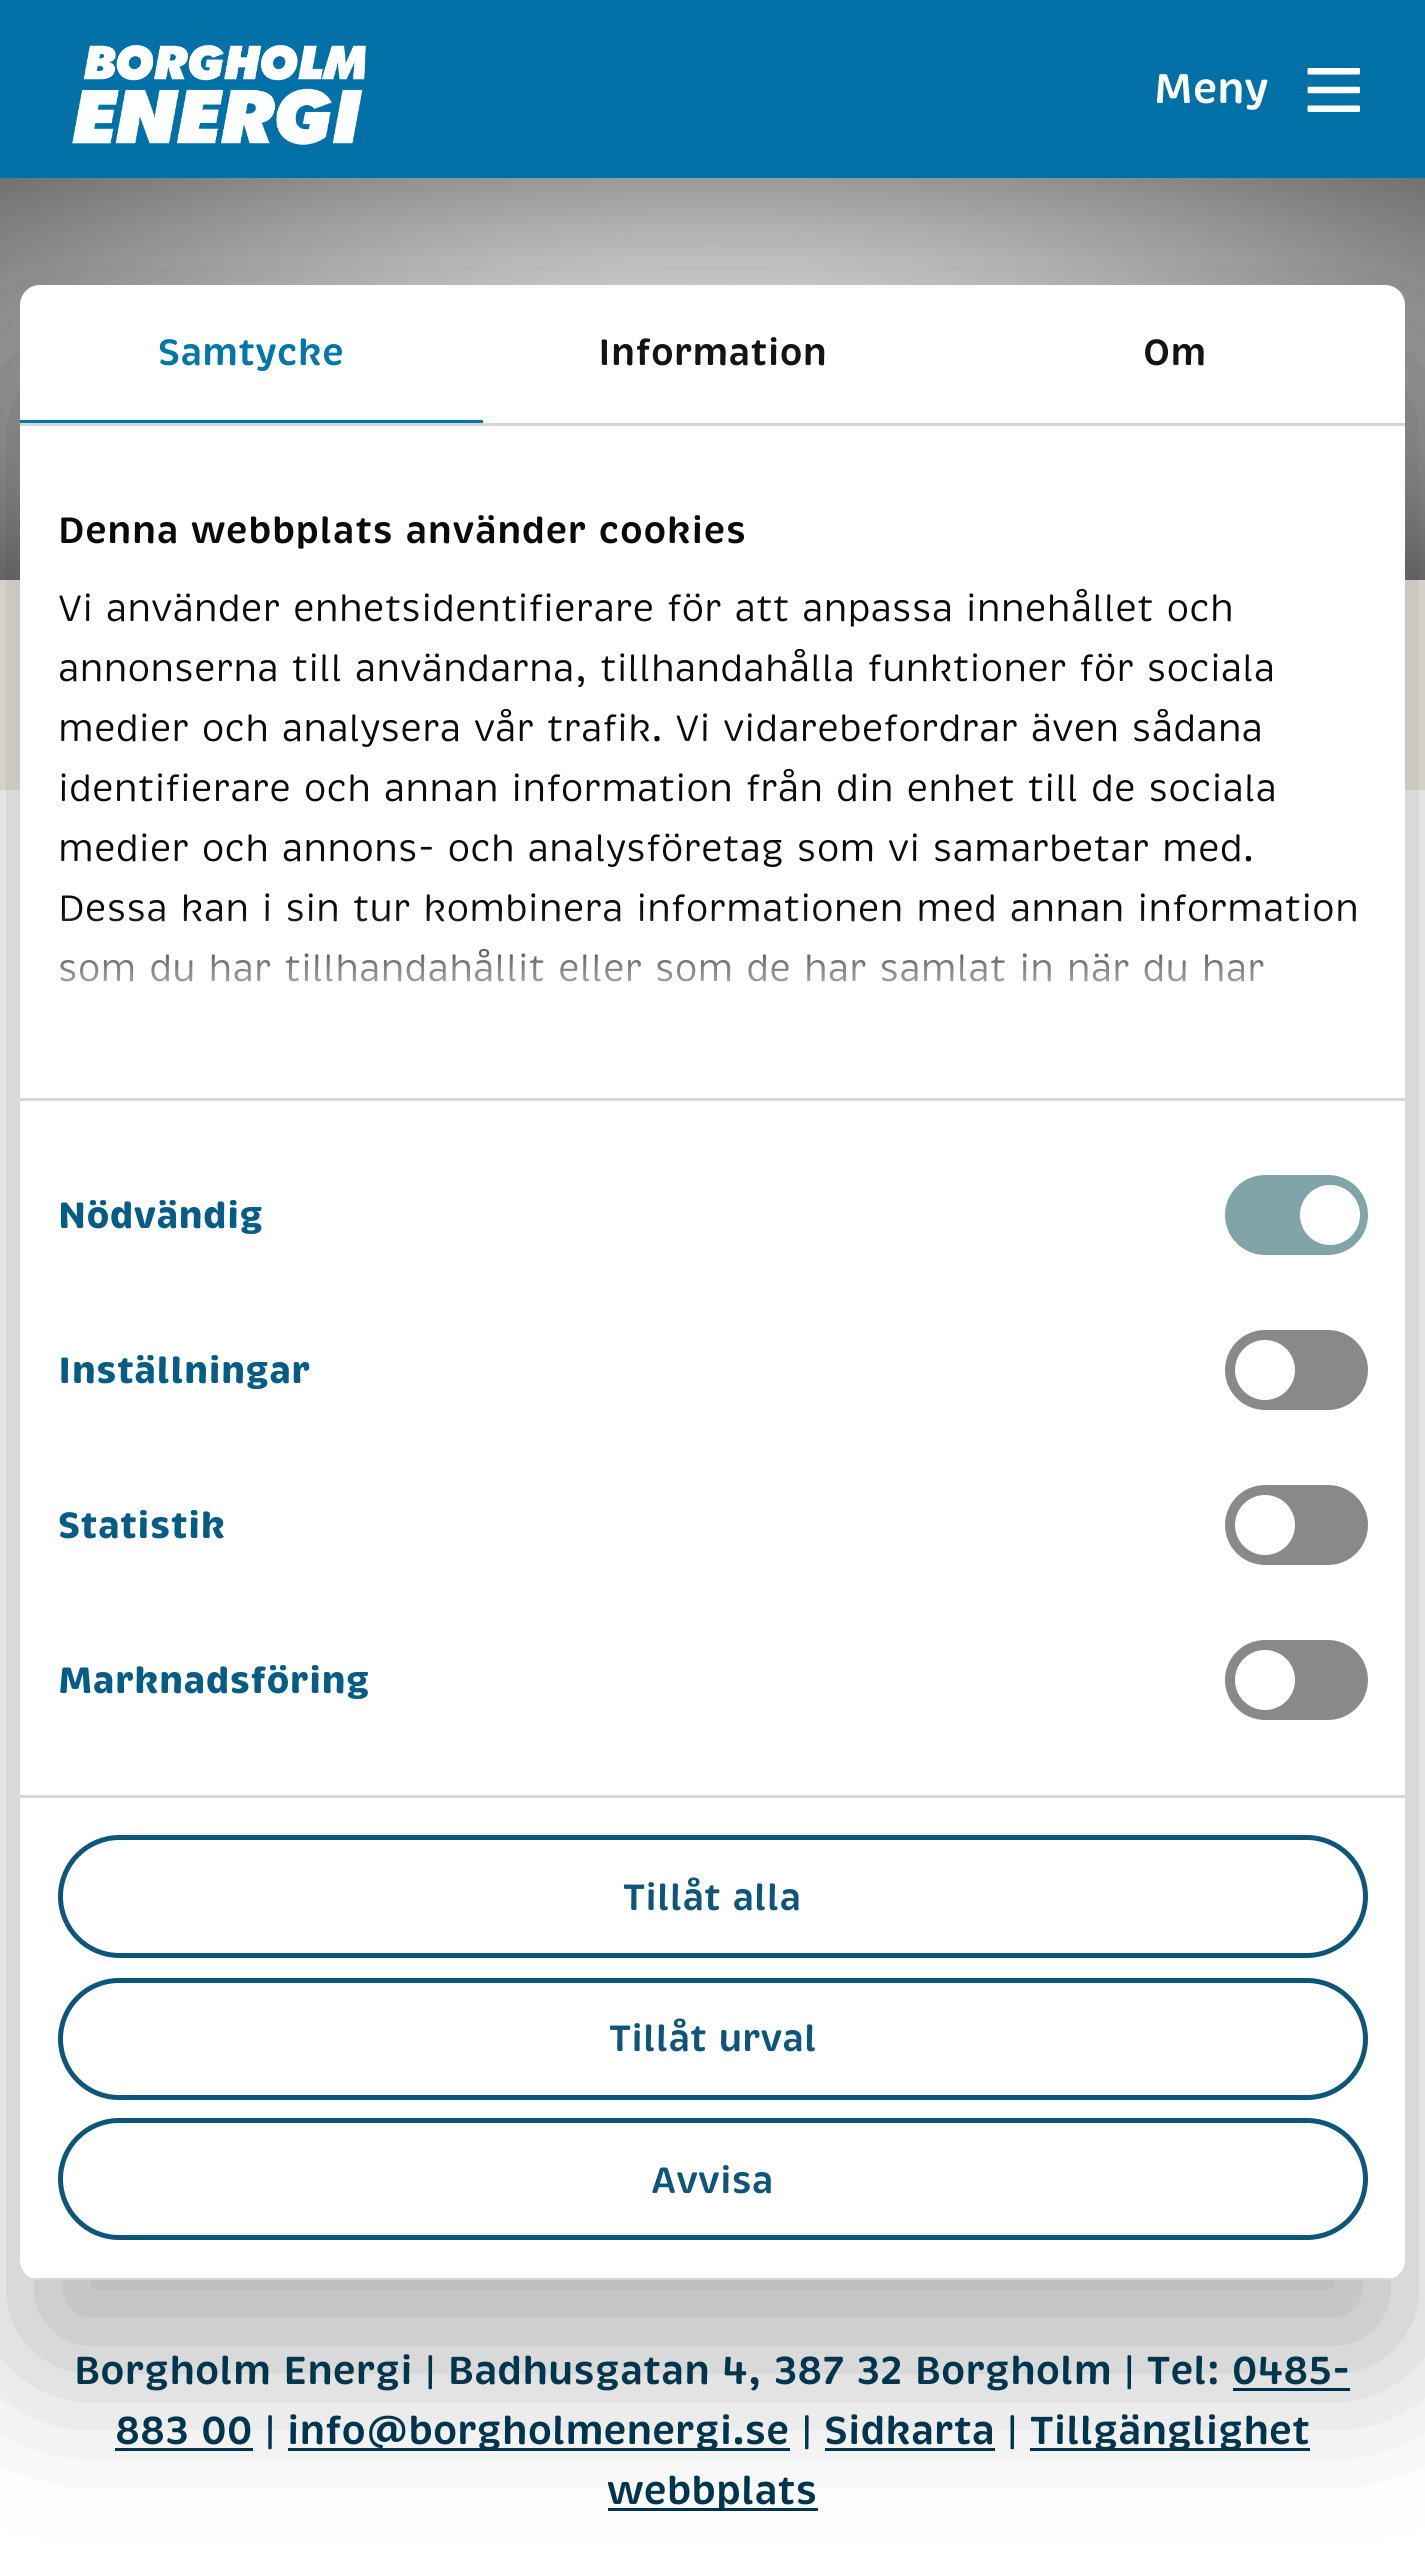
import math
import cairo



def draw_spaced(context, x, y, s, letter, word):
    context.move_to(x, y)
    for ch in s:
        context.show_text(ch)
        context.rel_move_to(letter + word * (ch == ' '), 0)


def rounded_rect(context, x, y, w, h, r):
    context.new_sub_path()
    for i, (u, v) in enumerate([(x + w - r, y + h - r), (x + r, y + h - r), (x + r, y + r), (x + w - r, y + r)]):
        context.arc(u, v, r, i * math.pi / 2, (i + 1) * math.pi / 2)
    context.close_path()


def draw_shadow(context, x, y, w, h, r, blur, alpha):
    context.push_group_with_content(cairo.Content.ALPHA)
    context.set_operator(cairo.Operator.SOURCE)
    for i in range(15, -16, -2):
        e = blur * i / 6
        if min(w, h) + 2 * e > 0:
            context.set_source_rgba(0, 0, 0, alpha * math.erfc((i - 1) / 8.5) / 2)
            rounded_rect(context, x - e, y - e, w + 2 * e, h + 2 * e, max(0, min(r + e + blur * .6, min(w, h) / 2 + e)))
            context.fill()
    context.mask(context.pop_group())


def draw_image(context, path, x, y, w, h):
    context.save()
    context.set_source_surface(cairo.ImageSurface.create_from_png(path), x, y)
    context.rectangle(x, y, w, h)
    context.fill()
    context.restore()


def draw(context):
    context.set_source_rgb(1, 1, 1)
    context.paint()
    context.set_source_rgb(0, 112 / 255, 167 / 255)
    context.rectangle(0, 0, 1425, 178)
    context.fill()
    draw_image(context, "images/1.png", 72, 45, 294, 100)
    draw_image(context, "images/2.png", 1307, 68, 53, 44)
    gradient = cairo.RadialGradient(0, 0, 0, 0, 0, 1)
    gradient.set_matrix(cairo.Matrix(1 / 1008, 0, 0, 1 / 285, -1 * 713 / 1008, -1 * 379 / 285))
    gradient.add_color_stop_rgba(0, 1, 1, 1, 1)
    gradient.add_color_stop_rgba(1, 112 / 255, 112 / 255, 112 / 255, 1)
    context.set_source(gradient)
    context.rectangle(0, 178, 1425, 402)
    context.fill()
    context.set_source_rgb(238 / 255, 235 / 255, 227 / 255)
    context.rectangle(0, 580, 1425, 210)
    context.fill()
    context.set_source_rgb(0, 53 / 255, 78 / 255)
    context.rectangle(1233, 2388, 117, 3)
    context.fill()
    context.rectangle(115, 2448, 138, 3)
    context.fill()
    context.rectangle(288, 2448, 502, 3)
    context.fill()
    context.rectangle(1030, 2448, 280, 3)
    context.fill()
    context.rectangle(825, 2448, 170, 3)
    context.fill()
    context.rectangle(608, 2508, 210, 3)
    context.fill()
    context.set_source_rgb(0, 0, 0)
    draw_shadow(context, 20, 365, 1385, 1995, 20, 85, 0.3)
    context.set_source_rgb(1, 1, 1)
    rounded_rect(context, 20, 285, 1385, 1995, 20)
    context.fill()
    context.set_source_rgb(214 / 255, 214 / 255, 214 / 255)
    context.rectangle(20, 423, 1385, 3)
    context.fill()
    context.set_source_rgb(0, 118 / 255, 169 / 255)
    context.rectangle(20, 420, 463, 3)
    context.fill()
    context.set_source_rgb(214 / 255, 214 / 255, 214 / 255)
    context.rectangle(20, 1098, 1385, 3)
    context.fill()
    context.rectangle(20, 1795, 1385, 3)
    context.fill()
    context.set_source_rgb(129 / 255, 164 / 255, 168 / 255)
    rounded_rect(context, 1225, 1175, 143, 80, 40)
    context.fill()
    context.set_source_rgb(1, 1, 1)
    context.arc(1330, 1215, 30, 0, 2 * math.pi)
    context.fill()
    context.set_source_rgb(136 / 255, 137 / 255, 137 / 255)
    rounded_rect(context, 1225, 1330, 143, 80, 40)
    context.fill()
    context.set_source_rgb(1, 1, 1)
    context.arc(1265, 1370, 30, 0, 2 * math.pi)
    context.fill()
    context.set_source_rgb(136 / 255, 137 / 255, 137 / 255)
    rounded_rect(context, 1225, 1485, 143, 80, 40)
    context.fill()
    context.set_source_rgb(1, 1, 1)
    context.arc(1265, 1525, 30, 0, 2 * math.pi)
    context.fill()
    context.set_source_rgb(136 / 255, 137 / 255, 137 / 255)
    rounded_rect(context, 1225, 1640, 143, 80, 40)
    context.fill()
    context.set_source_rgb(1, 1, 1)
    context.arc(1265, 1680, 30, 0, 2 * math.pi)
    context.fill()
    context.save()
    rounded_rect(context, 20, 285, 1385, 1995, 20)
    context.clip()
    context.set_source_rgb(214 / 255, 214 / 255, 214 / 255)
    context.rectangle(31, 2278, 1363, 2)
    context.fill()
    context.restore()
    rounded_rect(context, 60.5, 1837.5, 1305, 118, 59)
    context.set_source_rgb(14 / 255, 86 / 255, 121 / 255)
    context.set_line_width(5)
    context.stroke()
    rounded_rect(context, 60.5, 1980.5, 1305, 117, 58.5)
    context.stroke()
    rounded_rect(context, 60.5, 2120.5, 1305, 117, 58.5)
    context.stroke()
    context.select_font_face("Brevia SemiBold")
    context.set_font_size(42.5)
    context.set_source_rgb(1, 1, 1)
    context.move_to(1154, 103)
    context.show_text("Meny")
    context.set_font_size(37.5)
    context.set_source_rgb(0, 118 / 255, 169 / 255)
    draw_spaced(context, 158, 365, "Samtycke", 0.25, 0)
    context.set_source_rgb(20 / 255, 20 / 255, 20 / 255)
    draw_spaced(context, 598, 365, "Information", 0.25, 0)
    draw_spaced(context, 1143, 365, "Om", 0.25, 0)
    context.set_source_rgb(10 / 255, 10 / 255, 10 / 255)
    draw_spaced(context, 58, 543, "Denna webbplats använder cookies", 0.6, 0)
    context.select_font_face("Brevia")
    context.move_to(58, 621)
    context.show_text("Vi använder enhetsidentifierare för att anpassa innehållet och")
    context.move_to(58, 681)
    context.show_text("annonserna till användarna, tillhandahålla funktioner för sociala")
    context.move_to(58, 741)
    context.show_text("medier och analysera vår trafik. Vi vidarebefordrar även sådana")
    context.move_to(58, 801)
    context.show_text("identifierare och annan information från din enhet till de sociala")
    context.move_to(58, 861)
    context.show_text("medier och annons- och analysföretag som vi samarbetar med.")
    context.move_to(58, 921)
    context.show_text("Dessa kan i sin tur kombinera informationen med annan information")
    context.move_to(58, 981)
    context.show_text("som du har tillhandahållit eller som de har samlat in när du har")
    gradient = cairo.LinearGradient(696, 1098, 696, 910)
    gradient.add_color_stop_rgba(0, 1, 1, 1, 1)
    gradient.add_color_stop_rgba(0.5, 1, 1, 1, 0.8)
    gradient.add_color_stop_rgba(1, 1, 1, 1, 0)
    context.set_source(gradient)
    context.rectangle(60, 913, 1295, 69)
    context.fill()
    context.select_font_face("Brevia", cairo.FontSlant.NORMAL, cairo.FontWeight.BOLD)
    context.set_source_rgb(5 / 255, 92 / 255, 132 / 255)
    draw_spaced(context, 58, 1228, "Nödvändig", 0.25, 0)
    draw_spaced(context, 58, 1383, "Inställningar", 0.25, 0)
    draw_spaced(context, 58, 1538, "Statistik", 0.25, 0)
    draw_spaced(context, 58, 1693, "Marknadsföring", 0.25, 0)
    context.select_font_face("Brevia SemiBold")
    context.set_source_rgb(14 / 255, 86 / 255, 121 / 255)
    context.move_to(623, 1910)
    context.show_text("Tillåt alla")
    context.move_to(609, 2051)
    context.show_text("Tillåt urval")
    context.move_to(651, 2193)
    context.show_text("Avvisa")
    context.set_font_size(40)
    context.set_source_rgb(0, 53 / 255, 78 / 255)
    context.move_to(74, 2384)
    context.show_text("Borgholm Energi | Badhusgatan 4, 387 32 Borgholm | Tel: 0485-")
    context.move_to(115, 2444)
    context.show_text("883 00 |")
    context.move_to(287, 2444)
    context.show_text("info@borgholmenergi.se | Sidkarta |")
    context.move_to(1030, 2444)
    context.show_text("Tillgänglighet")
    context.move_to(607, 2504)
    context.show_text("webbplats")


surface = cairo.ImageSurface(cairo.Format.RGB24, 1425, 2563)
context = cairo.Context(surface)
options = cairo.FontOptions()
options.set_hint_metrics(cairo.HintMetrics.OFF)
options.set_hint_style(cairo.HintStyle.NONE)
context.set_font_options(options)
context.set_miter_limit(4)
draw(context)
surface.write_to_png("out.png")
